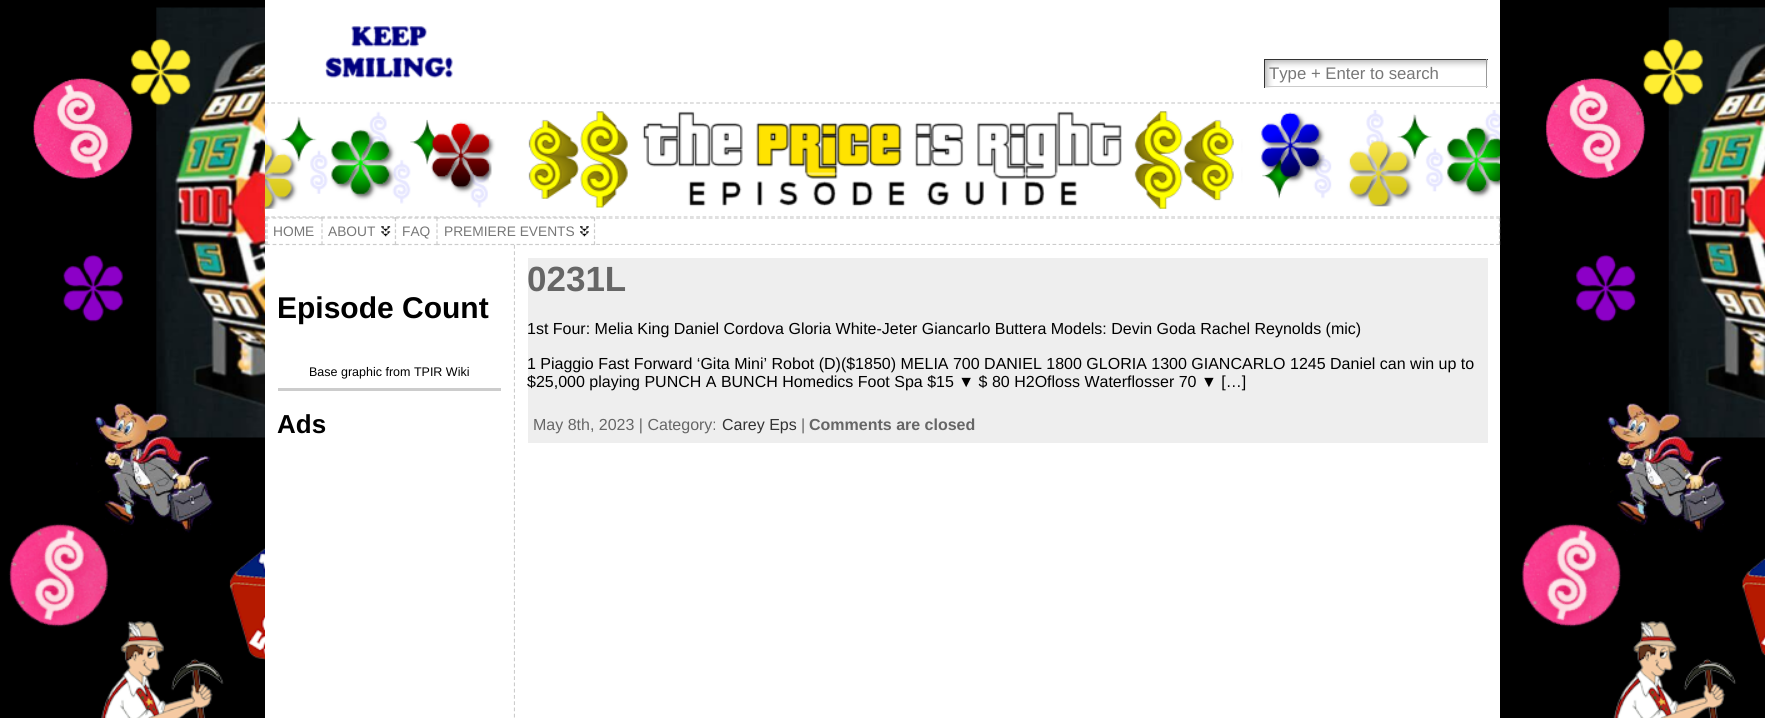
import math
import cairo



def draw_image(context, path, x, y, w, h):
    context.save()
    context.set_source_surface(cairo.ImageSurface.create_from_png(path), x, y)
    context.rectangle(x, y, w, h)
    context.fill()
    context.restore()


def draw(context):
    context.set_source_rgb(1, 1, 1)
    context.paint()
    draw_image(context, "images/1.png", 0, 0, 1765, 718)
    context.set_source_rgb(1, 1, 1)
    context.rectangle(265, 0, 1235, 110)
    context.fill()
    draw_image(context, "images/2.png", 325, 26, 128, 52)
    draw_image(context, "images/3.png", 1265, 60, 223, 28)
    context.set_source_rgb(51 / 255, 51 / 255, 51 / 255)
    context.rectangle(1264, 59, 224, 1)
    context.fill()
    context.set_source_rgb(153 / 255, 153 / 255, 153 / 255)
    context.rectangle(1486, 59, 1, 29)
    context.fill()
    context.set_source_rgb(204 / 255, 204 / 255, 204 / 255)
    context.rectangle(1264, 86, 224, 1)
    context.fill()
    context.set_source_rgb(51 / 255, 51 / 255, 51 / 255)
    context.rectangle(1264, 59, 1, 29)
    context.fill()
    context.new_path()
    context.move_to(265, 103)
    context.line_to(1500, 103)
    context.set_source_rgb(204 / 255, 204 / 255, 204 / 255)
    context.set_line_width(1.2)
    context.set_dash([3.75, 2.5])
    context.stroke()
    draw_image(context, "images/4.png", 265, 110, 1235, 100)
    context.set_source_rgb(1, 1, 1)
    context.rectangle(265, 218, 1235, 27)
    context.fill()
    context.new_path()
    context.move_to(265, 218)
    context.line_to(1500, 218)
    context.set_source_rgb(204 / 255, 204 / 255, 204 / 255)
    context.stroke()
    context.new_path()
    context.move_to(1499.5, 217.5)
    context.line_to(1499.5, 245)
    context.set_dash([3.75, 2.19])
    context.stroke()
    context.new_path()
    context.move_to(265, 244.5)
    context.line_to(1500, 244.5)
    context.set_dash([3.75, 2.5])
    context.stroke()
    context.new_path()
    context.move_to(265.5, 217.5)
    context.line_to(265.5, 245)
    context.set_dash([3.75, 2.19])
    context.stroke()
    context.set_source_rgb(1, 1, 1)
    context.rectangle(265, 210, 1235, 8)
    context.fill()
    context.new_path()
    context.move_to(265, 217)
    context.line_to(1500, 217)
    context.set_source_rgb(204 / 255, 204 / 255, 204 / 255)
    context.set_dash([3.75, 2.5])
    context.stroke()
    context.set_source_rgb(1, 1, 1)
    context.rectangle(266, 218, 53, 27)
    context.fill()
    context.new_path()
    context.move_to(266, 218)
    context.line_to(322.5, 218)
    context.set_source_rgb(204 / 255, 204 / 255, 204 / 255)
    context.set_dash([3.75, 2.81])
    context.stroke()
    context.new_path()
    context.move_to(322, 217.5)
    context.line_to(322, 245)
    context.set_dash([3.75, 2.19])
    context.stroke()
    context.set_source_rgb(1, 1, 1)
    context.rectangle(265, 245, 250, 473)
    context.fill()
    context.new_path()
    context.move_to(266, 244.5)
    context.line_to(322.5, 244.5)
    context.set_source_rgb(204 / 255, 204 / 255, 204 / 255)
    context.set_dash([3.75, 2.81])
    context.stroke()
    context.new_path()
    context.move_to(267, 217.5)
    context.line_to(267, 245)
    context.set_dash([3.75, 2.19])
    context.stroke()
    context.set_source_rgb(1, 1, 1)
    context.rectangle(321, 218, 73, 27)
    context.fill()
    draw_image(context, "images/5.png", 381, 226, 10, 11)
    context.new_path()
    context.move_to(321, 218)
    context.line_to(396, 218)
    context.set_source_rgb(204 / 255, 204 / 255, 204 / 255)
    context.set_dash([3.75, 2.73])
    context.stroke()
    context.new_path()
    context.move_to(395.5, 217.5)
    context.line_to(395.5, 245)
    context.set_dash([3.75, 2.19])
    context.stroke()
    context.new_path()
    context.move_to(321, 244.5)
    context.line_to(396, 244.5)
    context.set_dash([3.75, 2.73])
    context.stroke()
    context.new_path()
    context.move_to(322, 217.5)
    context.line_to(322, 245)
    context.set_dash([3.75, 2.19])
    context.stroke()
    context.set_source_rgb(1, 1, 1)
    context.rectangle(395, 218, 41, 27)
    context.fill()
    context.new_path()
    context.move_to(395, 218)
    context.line_to(437.5, 218)
    context.set_source_rgb(204 / 255, 204 / 255, 204 / 255)
    context.set_dash([3.75, 2.71])
    context.stroke()
    context.new_path()
    context.move_to(437, 217.5)
    context.line_to(437, 245)
    context.set_dash([3.75, 2.19])
    context.stroke()
    context.new_path()
    context.move_to(395, 244.5)
    context.line_to(437.5, 244.5)
    context.set_dash([3.75, 2.71])
    context.stroke()
    context.new_path()
    context.move_to(395.5, 217.5)
    context.line_to(395.5, 245)
    context.set_dash([3.75, 2.19])
    context.stroke()
    context.set_source_rgb(1, 1, 1)
    context.rectangle(436, 218, 158, 27)
    context.fill()
    draw_image(context, "images/6.png", 580, 226, 9, 11)
    context.new_path()
    context.move_to(436, 218)
    context.line_to(595, 218)
    context.set_source_rgb(204 / 255, 204 / 255, 204 / 255)
    context.set_dash([3.75, 2.45])
    context.stroke()
    context.new_path()
    context.move_to(594.5, 217.5)
    context.line_to(594.5, 245)
    context.set_dash([3.75, 2.19])
    context.stroke()
    context.new_path()
    context.move_to(514.5, 245)
    context.line_to(514.5, 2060)
    context.set_dash([3.75, 2.5])
    context.stroke()
    context.set_source_rgb(1, 1, 1)
    context.rectangle(515, 245, 985, 473)
    context.fill()
    context.new_path()
    context.move_to(436, 244.5)
    context.line_to(595, 244.5)
    context.set_source_rgb(204 / 255, 204 / 255, 204 / 255)
    context.set_dash([3.75, 2.45])
    context.stroke()
    context.new_path()
    context.move_to(437, 217.5)
    context.line_to(437, 245)
    context.set_dash([3.75, 2.19])
    context.stroke()
    context.rectangle(278, 388, 223, 3)
    context.fill()
    context.set_source_rgb(238 / 255, 238 / 255, 238 / 255)
    context.rectangle(528, 258, 960, 185)
    context.fill()
    context.select_font_face("Liberation Sans")
    context.set_font_size(16.75)
    context.set_source_rgb(119 / 255, 119 / 255, 119 / 255)
    context.move_to(1269, 79)
    context.show_text("Type + Enter to search")
    context.set_font_size(13.75)
    context.move_to(273, 236)
    context.show_text("HOME")
    context.move_to(328, 236)
    context.show_text("ABOUT")
    context.move_to(402, 236)
    context.show_text("FAQ")
    context.move_to(444, 236)
    context.show_text("PREMIERE EVENTS")
    context.select_font_face("Liberation Sans", cairo.FontSlant.NORMAL, cairo.FontWeight.BOLD)
    context.set_font_size(30)
    context.set_source_rgb(0, 0, 0)
    context.move_to(277, 318)
    context.show_text("Episode Count")
    context.select_font_face("Liberation Sans")
    context.set_font_size(12.5)
    context.move_to(309, 376)
    context.show_text("Base graphic from TPIR Wiki")
    context.select_font_face("Liberation Sans", cairo.FontSlant.NORMAL, cairo.FontWeight.BOLD)
    context.set_font_size(26)
    context.move_to(277, 433)
    context.show_text("Ads")
    context.set_font_size(35)
    context.set_source_rgb(102 / 255, 102 / 255, 102 / 255)
    context.move_to(527, 291)
    context.show_text("0231L")
    context.select_font_face("Liberation Sans")
    context.set_font_size(16)
    context.set_source_rgb(0, 0, 0)
    context.move_to(527, 334)
    context.show_text("1st Four: Melia King Daniel Cordova Gloria White-Jeter Giancarlo Buttera Models: Devin Goda Rachel Reynolds (mic)")
    context.move_to(527, 369)
    context.show_text("1 Piaggio Fast Forward ‘Gita Mini’ Robot (D)($1850) MELIA 700 DANIEL 1800 GLORIA 1300 GIANCARLO 1245 Daniel can win up to")
    context.move_to(527, 387)
    context.show_text("$25,000 playing PUNCH A BUNCH Homedics Foot Spa $15 ▼ $ 80 H2Ofloss Waterflosser 70 ▼ […]")
    context.set_source_rgb(102 / 255, 102 / 255, 102 / 255)
    context.move_to(533, 430)
    context.show_text("May 8th, 2023 | Category:")
    context.set_source_rgb(51 / 255, 51 / 255, 51 / 255)
    context.move_to(722, 430)
    context.show_text("Carey Eps")
    context.set_source_rgb(102 / 255, 102 / 255, 102 / 255)
    context.move_to(801, 430)
    context.show_text("|")
    context.select_font_face("Liberation Sans", cairo.FontSlant.NORMAL, cairo.FontWeight.BOLD)
    context.move_to(809, 430)
    context.show_text("Comments are closed")


surface = cairo.ImageSurface(cairo.Format.RGB24, 1765, 718)
context = cairo.Context(surface)
options = cairo.FontOptions()
options.set_hint_metrics(cairo.HintMetrics.OFF)
options.set_hint_style(cairo.HintStyle.NONE)
context.set_font_options(options)
context.set_miter_limit(4)
draw(context)
surface.write_to_png("out.png")
